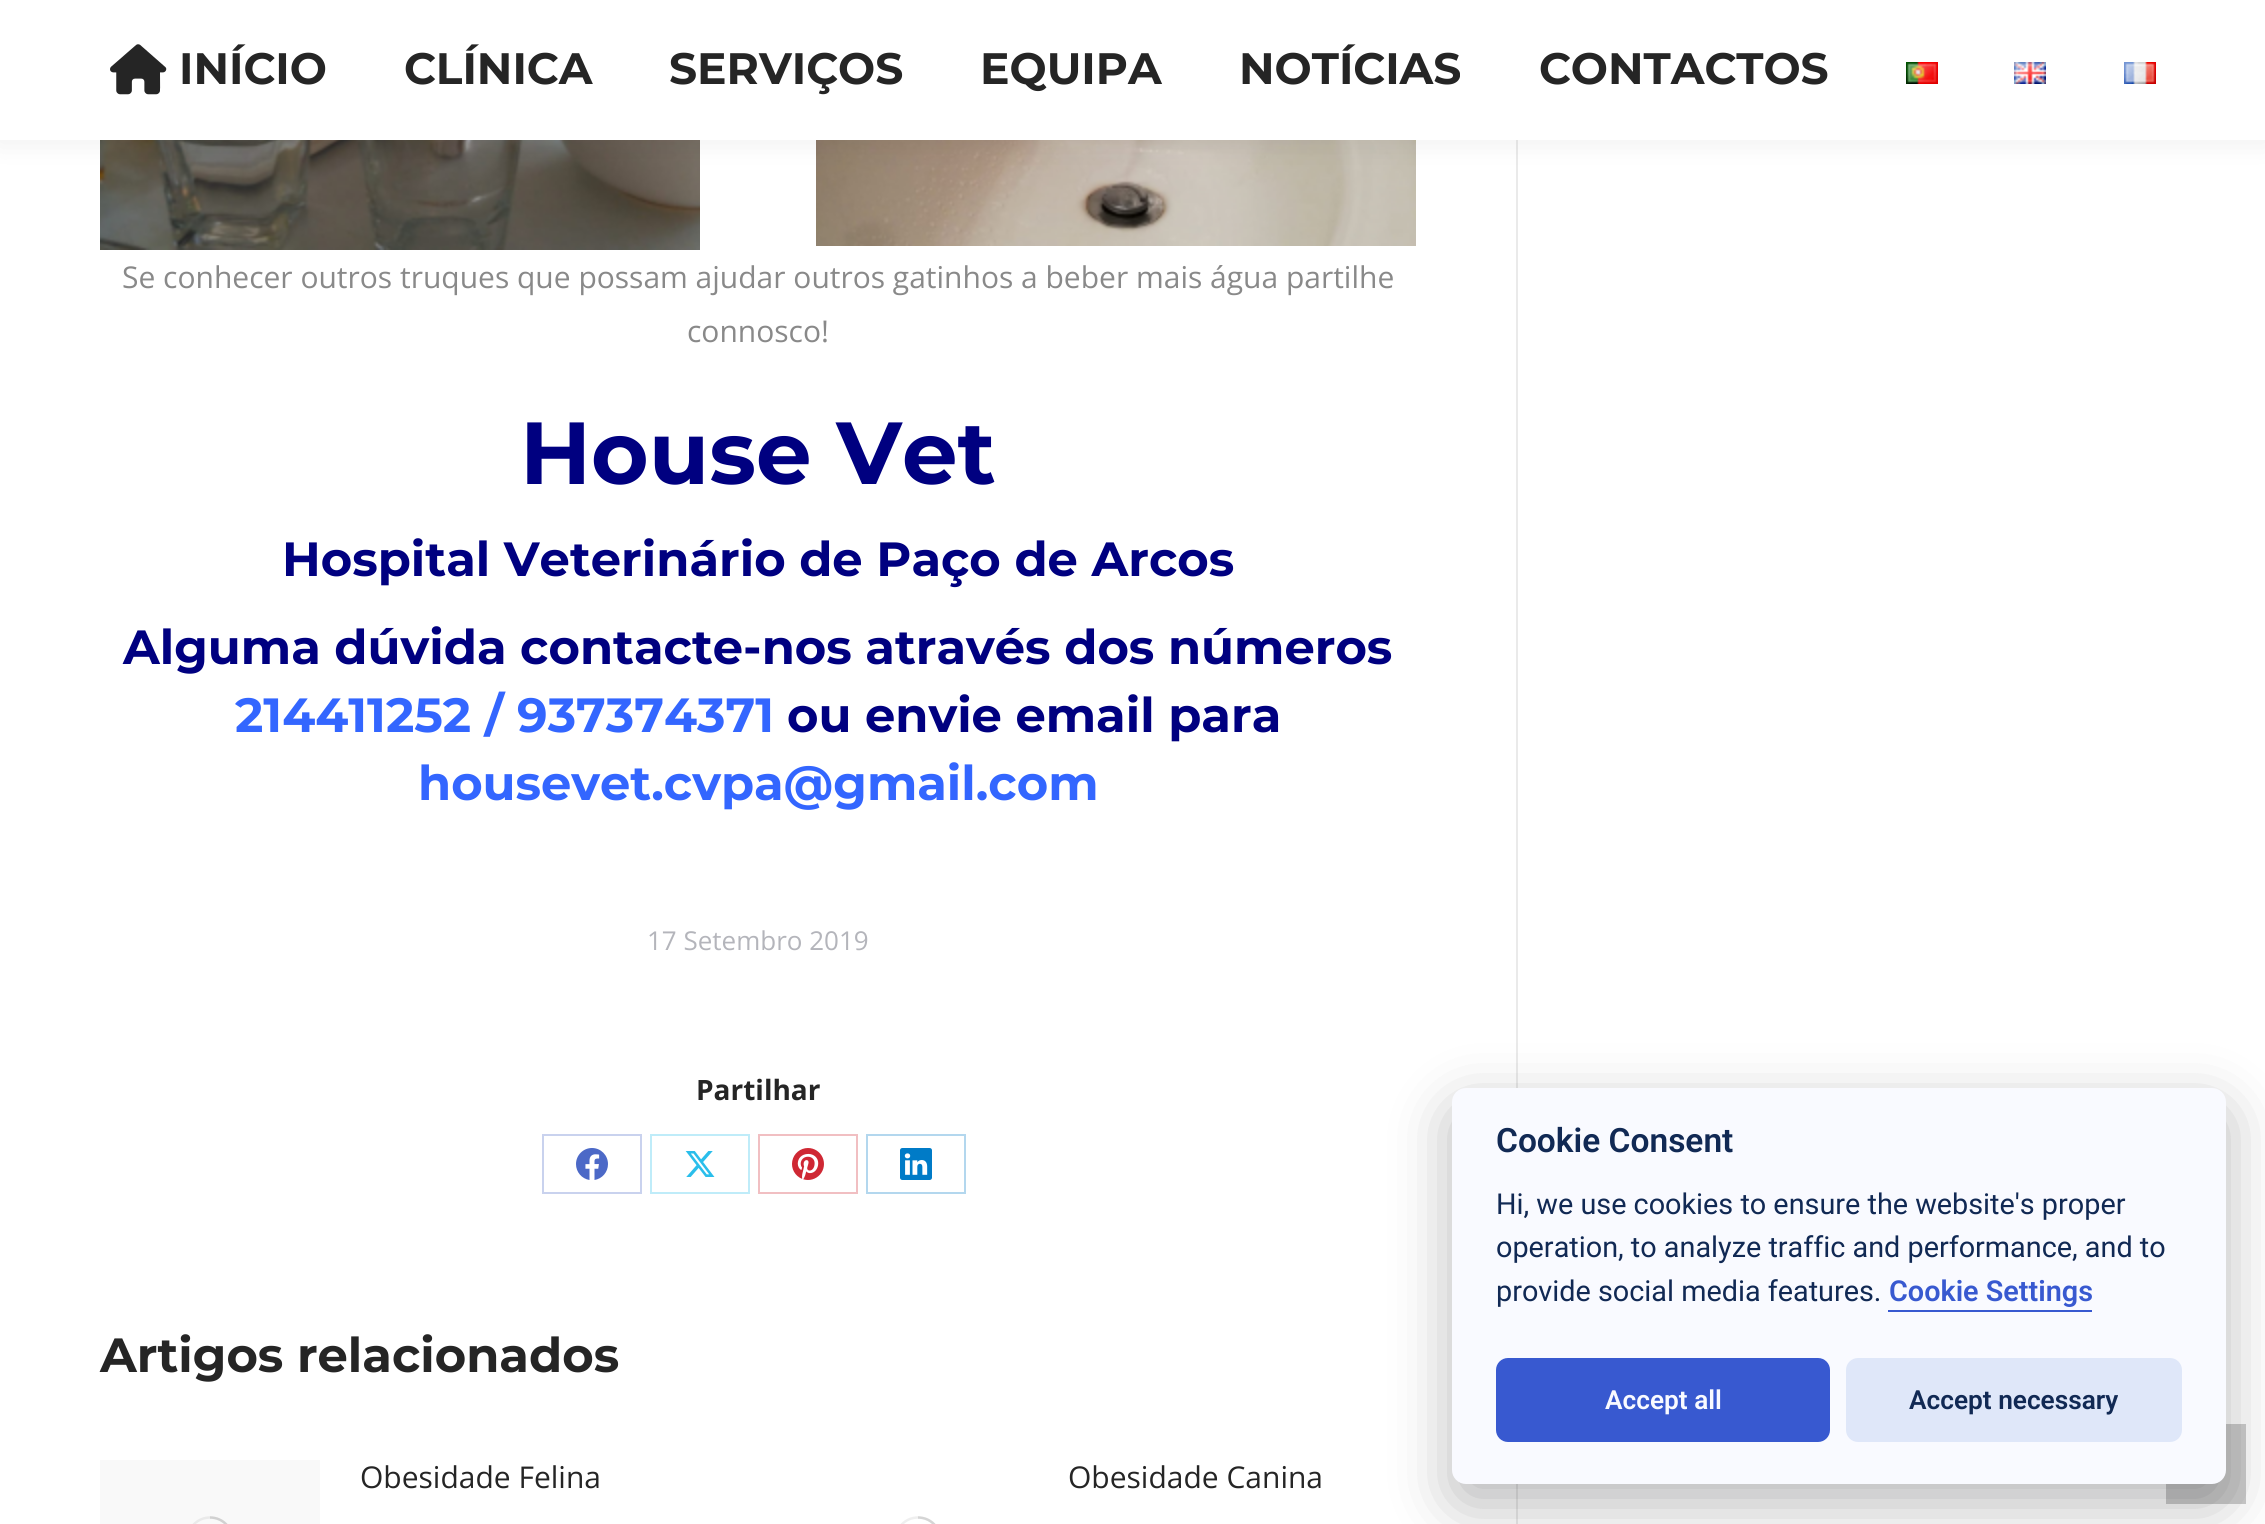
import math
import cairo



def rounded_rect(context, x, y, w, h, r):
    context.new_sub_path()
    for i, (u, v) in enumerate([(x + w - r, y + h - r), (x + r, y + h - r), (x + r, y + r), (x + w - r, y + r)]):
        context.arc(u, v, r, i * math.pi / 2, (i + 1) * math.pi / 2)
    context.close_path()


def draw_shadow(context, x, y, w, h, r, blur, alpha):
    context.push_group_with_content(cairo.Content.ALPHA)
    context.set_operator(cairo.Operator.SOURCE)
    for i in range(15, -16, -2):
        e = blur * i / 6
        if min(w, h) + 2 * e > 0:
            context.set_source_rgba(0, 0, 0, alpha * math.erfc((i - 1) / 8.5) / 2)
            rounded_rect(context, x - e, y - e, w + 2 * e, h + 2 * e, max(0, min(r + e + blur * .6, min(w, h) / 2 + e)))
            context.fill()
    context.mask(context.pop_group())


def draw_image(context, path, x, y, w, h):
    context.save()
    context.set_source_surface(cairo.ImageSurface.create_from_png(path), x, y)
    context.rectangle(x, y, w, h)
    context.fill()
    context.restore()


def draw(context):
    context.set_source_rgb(1, 1, 1)
    context.paint()
    draw_image(context, "images/5.png", 100, 140, 600, 110)
    draw_image(context, "images/6.png", 816, 140, 600, 106)
    context.set_source_rgb(234 / 255, 234 / 255, 234 / 255)
    context.rectangle(1516, 140, 2, 1384)
    context.fill()
    context.set_source_rgb(0, 0, 0)
    draw_shadow(context, -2, -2, 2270, 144, 0, 15, 0.07)
    context.set_source_rgb(1, 1, 1)
    context.rectangle(0, 0, 2265, 140)
    context.fill()
    draw_image(context, "images/1.png", 110, 44, 57, 51)
    draw_image(context, "images/2.png", 1906, 62, 32, 22)
    draw_image(context, "images/3.png", 2014, 62, 32, 22)
    draw_image(context, "images/4.png", 2124, 62, 32, 22)
    context.rectangle(543, 1135, 98, 58)
    context.set_source_rgb(201 / 255, 210 / 255, 238 / 255)
    context.stroke()
    draw_image(context, "images/7.png", 576, 1148, 32, 32)
    context.rectangle(651, 1135, 98, 58)
    context.set_source_rgb(191 / 255, 236 / 255, 249 / 255)
    context.stroke()
    draw_image(context, "images/8.png", 685, 1151, 30, 26)
    context.rectangle(759, 1135, 98, 58)
    context.set_source_rgb(241 / 255, 191 / 255, 194 / 255)
    context.stroke()
    draw_image(context, "images/9.png", 792, 1148, 32, 32)
    context.rectangle(867, 1135, 98, 58)
    context.set_source_rgb(179 / 255, 215 / 255, 238 / 255)
    context.stroke()
    draw_image(context, "images/10.png", 900, 1148, 32, 32)
    context.set_source_rgb(249 / 255, 249 / 255, 249 / 255)
    context.rectangle(100, 1460, 220, 64)
    context.fill()
    context.arc(210, 1540, 22.5, 0, 2 * math.pi)
    context.set_source_rgb(234 / 255, 234 / 255, 234 / 255)
    context.set_line_width(2.5)
    context.stroke()
    context.new_path()
    context.move_to(232.5, 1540)
    context.curve_to(232.5, 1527.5, 222.5, 1517.5, 210, 1517.5)
    context.set_source_rgba(137 / 255, 137 / 255, 137 / 255, 0.25)
    context.stroke()
    context.arc(918, 1540, 22.5, 0, 2 * math.pi)
    context.set_source_rgb(239 / 255, 239 / 255, 239 / 255)
    context.stroke()
    context.new_path()
    context.move_to(940.5, 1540)
    context.curve_to(940.5, 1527.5, 930.5, 1517.5, 918, 1517.5)
    context.set_source_rgba(137 / 255, 137 / 255, 137 / 255, 0.25)
    context.stroke()
    context.set_source_rgb(204 / 255, 204 / 255, 204 / 255)
    context.rectangle(2166, 1424, 80, 80)
    context.fill()
    context.set_source_rgb(2 / 255, 2 / 255, 3 / 255)
    draw_shadow(context, 1452, 1108, 774, 396, 14, 30, 0.28)
    context.set_source_rgb(249 / 255, 250 / 255, 1)
    rounded_rect(context, 1452, 1088, 774, 396, 14)
    context.fill()
    context.set_source_rgb(56 / 255, 89 / 255, 208 / 255)
    context.rectangle(1888, 1310, 204, 2)
    context.fill()
    rounded_rect(context, 1496, 1358, 334, 84, 12)
    context.fill()
    context.set_source_rgb(223 / 255, 231 / 255, 249 / 255)
    rounded_rect(context, 1846, 1358, 336, 84, 12)
    context.fill()
    context.select_font_face("Montserrat", cairo.FontSlant.NORMAL, cairo.FontWeight.BOLD)
    context.set_font_size(44)
    context.set_source_rgb(37 / 255, 37 / 255, 37 / 255)
    context.move_to(179, 84)
    context.show_text("INÍCIO")
    context.move_to(404, 84)
    context.show_text("CLÍNICA")
    context.move_to(669, 84)
    context.show_text("SERVIÇOS")
    context.move_to(980, 84)
    context.show_text("EQUIPA")
    context.move_to(1239, 84)
    context.show_text("NOTÍCIAS")
    context.move_to(1539, 84)
    context.show_text("CONTACTOS")
    context.select_font_face("Open Sans")
    context.set_font_size(30)
    context.set_source_rgb(137 / 255, 137 / 255, 137 / 255)
    context.move_to(122, 288)
    context.show_text("Se conhecer outros truques que possam ajudar outros gatinhos a beber mais água partilhe")
    context.move_to(687, 342)
    context.show_text("connosco!")
    context.select_font_face("Montserrat", cairo.FontSlant.NORMAL, cairo.FontWeight.BOLD)
    context.set_font_size(88)
    context.set_source_rgb(0, 0, 128 / 255)
    context.move_to(520, 484)
    context.show_text("House Vet")
    context.set_font_size(48)
    context.move_to(282, 576)
    context.show_text("Hospital Veterinário de Paço de Arcos")
    context.move_to(123, 664)
    context.show_text("Alguma dúvida contacte-nos através dos números")
    context.set_source_rgb(51 / 255, 102 / 255, 1)
    context.move_to(235, 732)
    context.show_text("214411252 / 937374371")
    context.set_source_rgb(0, 0, 128 / 255)
    context.move_to(787, 732)
    context.show_text("ou envie email para")
    context.set_source_rgb(51 / 255, 102 / 255, 1)
    context.move_to(418, 800)
    context.show_text("housevet.cvpa@gmail.com")
    context.select_font_face("Open Sans")
    context.set_font_size(26)
    context.set_source_rgb(180 / 255, 181 / 255, 187 / 255)
    context.move_to(647, 950)
    context.show_text("17 Setembro 2019")
    context.select_font_face("Open Sans", cairo.FontSlant.NORMAL, cairo.FontWeight.BOLD)
    context.set_font_size(28)
    context.set_source_rgb(37 / 255, 37 / 255, 37 / 255)
    context.move_to(696, 1100)
    context.show_text("Partilhar")
    context.select_font_face("Montserrat", cairo.FontSlant.NORMAL, cairo.FontWeight.BOLD)
    context.set_font_size(48)
    context.move_to(100, 1372)
    context.show_text("Artigos relacionados")
    context.select_font_face("Open Sans")
    context.set_font_size(30)
    context.move_to(360, 1488)
    context.show_text("Obesidade Felina")
    context.move_to(1068, 1488)
    context.show_text("Obesidade Canina")
    context.select_font_face("Roboto SemiBold")
    context.set_font_size(33.5)
    context.set_source_rgb(17 / 255, 41 / 255, 84 / 255)
    context.move_to(1496, 1152)
    context.show_text("Cookie Consent")
    context.select_font_face("Roboto")
    context.set_font_size(28.8)
    context.move_to(1496, 1214)
    context.show_text("Hi, we use cookies to ensure the website's proper")
    context.move_to(1496, 1257)
    context.show_text("operation, to analyze traffic and performance, and to")
    context.move_to(1496, 1301)
    context.show_text("provide social media features.")
    context.select_font_face("Roboto SemiBold")
    context.set_source_rgb(56 / 255, 89 / 255, 208 / 255)
    context.move_to(1889, 1301)
    context.show_text("Cookie Settings")
    context.set_font_size(26.25)
    context.set_source_rgb(249 / 255, 250 / 255, 1)
    context.move_to(1605, 1409)
    context.show_text("Accept all")
    context.set_source_rgb(17 / 255, 41 / 255, 84 / 255)
    context.move_to(1909, 1409)
    context.show_text("Accept necessary")


surface = cairo.ImageSurface(cairo.Format.RGB24, 2265, 1524)
context = cairo.Context(surface)
options = cairo.FontOptions()
options.set_hint_metrics(cairo.HintMetrics.OFF)
options.set_hint_style(cairo.HintStyle.NONE)
context.set_font_options(options)
context.set_miter_limit(4)
draw(context)
surface.write_to_png("out.png")
